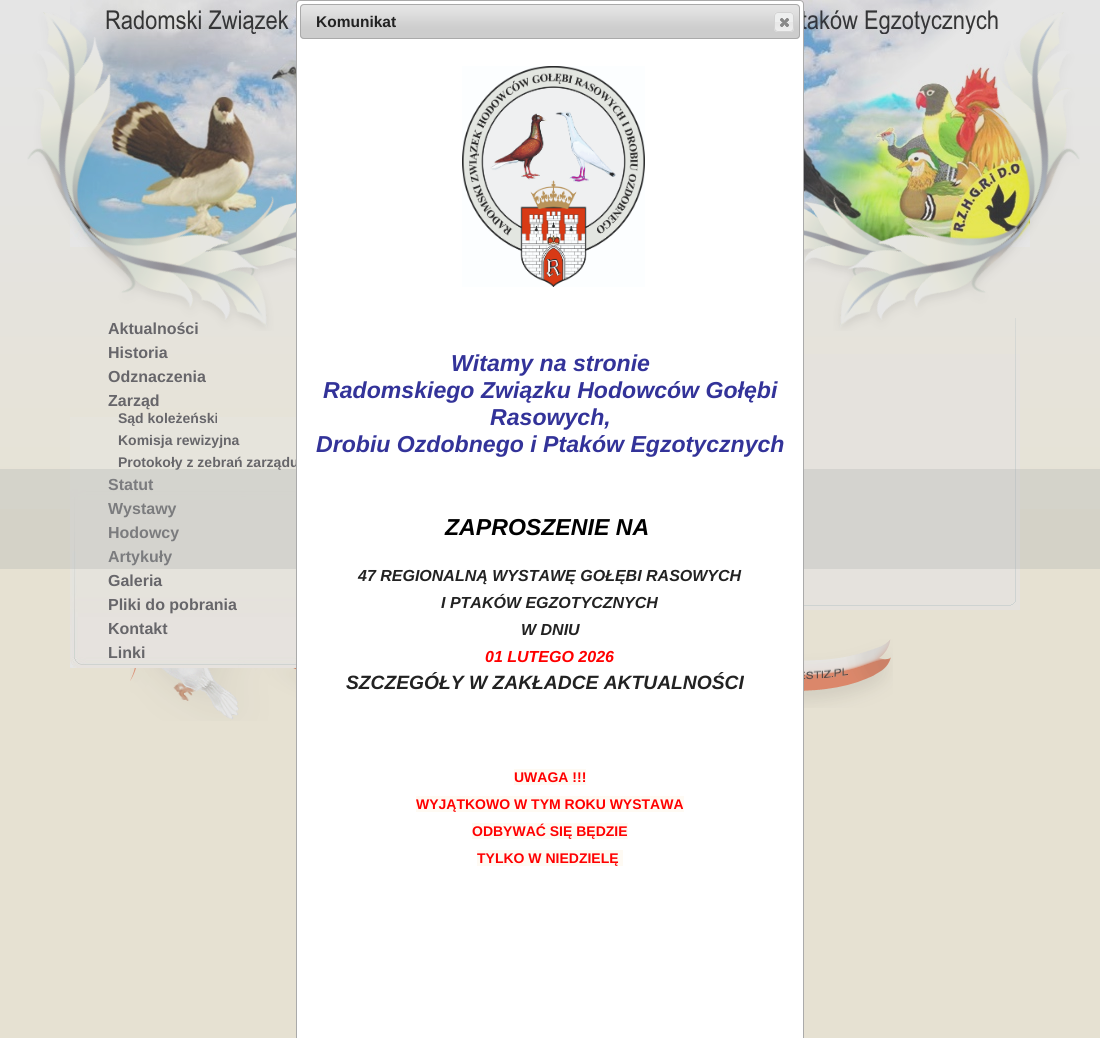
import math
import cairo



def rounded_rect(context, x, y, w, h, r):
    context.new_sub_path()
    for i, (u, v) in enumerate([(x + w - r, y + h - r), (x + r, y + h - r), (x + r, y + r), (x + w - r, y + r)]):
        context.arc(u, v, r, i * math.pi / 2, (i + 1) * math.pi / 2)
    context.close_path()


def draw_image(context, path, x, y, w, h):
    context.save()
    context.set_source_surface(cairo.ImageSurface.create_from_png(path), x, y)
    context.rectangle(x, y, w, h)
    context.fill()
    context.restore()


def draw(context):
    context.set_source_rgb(230 / 255, 225 / 255, 210 / 255)
    context.paint()
    draw_image(context, "images/1.png", 0, 0, 1100, 509)
    draw_image(context, "images/2.png", 70, 0, 960, 247)
    draw_image(context, "images/3.png", 27, 12, 269, 319)
    context.set_source_rgb(229 / 255, 226 / 255, 221 / 255)
    context.rectangle(804, 354, 216, 256)
    context.fill()
    draw_image(context, "images/7.png", 1015, 318, 1, 282)
    draw_image(context, "images/4.png", 804, 12, 276, 319)
    draw_image(context, "images/5.png", 70, 417, 226, 251)
    draw_image(context, "images/6.png", 804, 600, 212, 6)
    draw_image(context, "images/8.png", 130, 668, 166, 53)
    draw_image(context, "images/9.png", 804, 639, 89, 69)
    context.select_font_face("Liberation Sans", cairo.FontSlant.NORMAL, cairo.FontWeight.BOLD)
    context.set_font_size(16)
    context.set_source_rgb(103 / 255, 102 / 255, 106 / 255)
    context.move_to(108, 334)
    context.show_text("Aktualności")
    context.move_to(108, 358)
    context.show_text("Historia")
    context.move_to(108, 382)
    context.show_text("Odznaczenia")
    context.move_to(108, 406)
    context.show_text("Zarząd")
    context.set_font_size(14)
    context.move_to(118, 423)
    context.show_text("Sąd koleżeński")
    context.move_to(118, 445)
    context.show_text("Komisja rewizyjna")
    context.move_to(118, 467)
    context.show_text("Protokoły z zebrań zarządu")
    context.set_font_size(16)
    context.move_to(108, 490)
    context.show_text("Statut")
    context.move_to(108, 514)
    context.show_text("Wystawy")
    context.move_to(108, 538)
    context.show_text("Hodowcy")
    context.move_to(108, 562)
    context.show_text("Artykuły")
    context.move_to(108, 586)
    context.show_text("Galeria")
    context.move_to(108, 610)
    context.show_text("Pliki do pobrania")
    context.move_to(108, 634)
    context.show_text("Kontakt")
    context.move_to(108, 658)
    context.show_text("Linki")
    context.set_source_rgba(171 / 255, 174 / 255, 174 / 255, 0.3)
    context.rectangle(0, 469, 1100, 100)
    context.fill()
    context.set_source_rgb(1, 1, 1)
    rounded_rect(context, 296.5, 0.5, 507, 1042, 3.5)
    context.fill_preserve()
    context.set_source_rgb(170 / 255, 170 / 255, 170 / 255)
    context.set_line_width(1)
    context.stroke()
    context.set_source_rgb(254 / 255, 250 / 255, 243 / 255)
    context.rectangle(477, 850, 146, 16)
    context.fill()
    context.set_font_size(14)
    context.set_source_rgb(1, 0, 0)
    context.move_to(477, 863)
    context.show_text("TYLKO W NIEDZIELĘ")
    context.set_source_rgb(254 / 255, 250 / 255, 243 / 255)
    context.rectangle(472, 823, 156, 16)
    context.fill()
    context.set_source_rgb(1, 0, 0)
    context.move_to(472, 836)
    context.show_text("ODBYWAĆ SIĘ BĘDZIE")
    context.set_source_rgb(254 / 255, 250 / 255, 243 / 255)
    context.rectangle(416, 796, 268, 16)
    context.fill()
    context.set_source_rgb(1, 0, 0)
    context.move_to(416, 809)
    context.show_text("WYJĄTKOWO W TYM ROKU WYSTAWA")
    context.set_source_rgb(254 / 255, 250 / 255, 243 / 255)
    context.rectangle(514, 769, 72, 16)
    context.fill()
    context.set_source_rgb(1, 0, 0)
    context.move_to(514, 782)
    context.show_text("UWAGA !!!")
    context.select_font_face("Liberation Sans", cairo.FontSlant.ITALIC, cairo.FontWeight.BOLD)
    context.set_font_size(19.25)
    context.set_source_rgb(34 / 255, 34 / 255, 34 / 255)
    context.move_to(346, 689)
    context.show_text("SZCZEGÓŁY W ZAKŁADCE AKTUALNOŚCI")
    context.set_font_size(16)
    context.set_source_rgb(1, 0, 0)
    context.move_to(485, 662)
    context.show_text("01 LUTEGO 2026")
    context.set_source_rgb(34 / 255, 34 / 255, 34 / 255)
    context.move_to(521, 635)
    context.show_text("W DNIU")
    context.move_to(441, 608)
    context.show_text("I PTAKÓW EGZOTYCZNYCH")
    context.move_to(358, 581)
    context.show_text("47 REGIONALNĄ WYSTAWĘ GOŁĘBI RASOWYCH")
    context.set_font_size(23.1)
    context.set_source_rgb(0, 0, 0)
    context.move_to(445, 535)
    context.show_text("ZAPROSZENIE NA")
    context.set_source_rgb(51 / 255, 51 / 255, 153 / 255)
    context.move_to(316, 452)
    context.show_text("Drobiu Ozdobnego i Ptaków Egzotycznych")
    context.move_to(490, 425)
    context.show_text("Rasowych,")
    context.move_to(323, 398)
    context.show_text("Radomskiego Związku Hodowców Gołębi")
    context.move_to(451, 371)
    context.show_text("Witamy na stronie")
    draw_image(context, "images/13.png", 462, 66, 183, 221)
    draw_image(context, "images/10.png", 300, 4, 500, 35)
    rounded_rect(context, 300.5, 4.5, 499, 34, 3.5)
    context.set_source_rgb(170 / 255, 170 / 255, 170 / 255)
    context.stroke()
    draw_image(context, "images/11.png", 774, 12, 20, 20)
    rounded_rect(context, 774.5, 12.5, 19, 19, 3.5)
    context.set_source_rgb(211 / 255, 211 / 255, 211 / 255)
    context.stroke()
    draw_image(context, "images/12.png", 780, 18, 9, 9)
    context.select_font_face("Liberation Sans", cairo.FontSlant.NORMAL, cairo.FontWeight.BOLD)
    context.set_font_size(15.5)
    context.set_source_rgb(34 / 255, 34 / 255, 34 / 255)
    context.move_to(316, 27)
    context.show_text("Komunikat")


surface = cairo.ImageSurface(cairo.Format.RGB24, 1100, 1038)
context = cairo.Context(surface)
options = cairo.FontOptions()
options.set_hint_metrics(cairo.HintMetrics.OFF)
options.set_hint_style(cairo.HintStyle.NONE)
context.set_font_options(options)
context.set_miter_limit(4)
draw(context)
surface.write_to_png("out.png")
